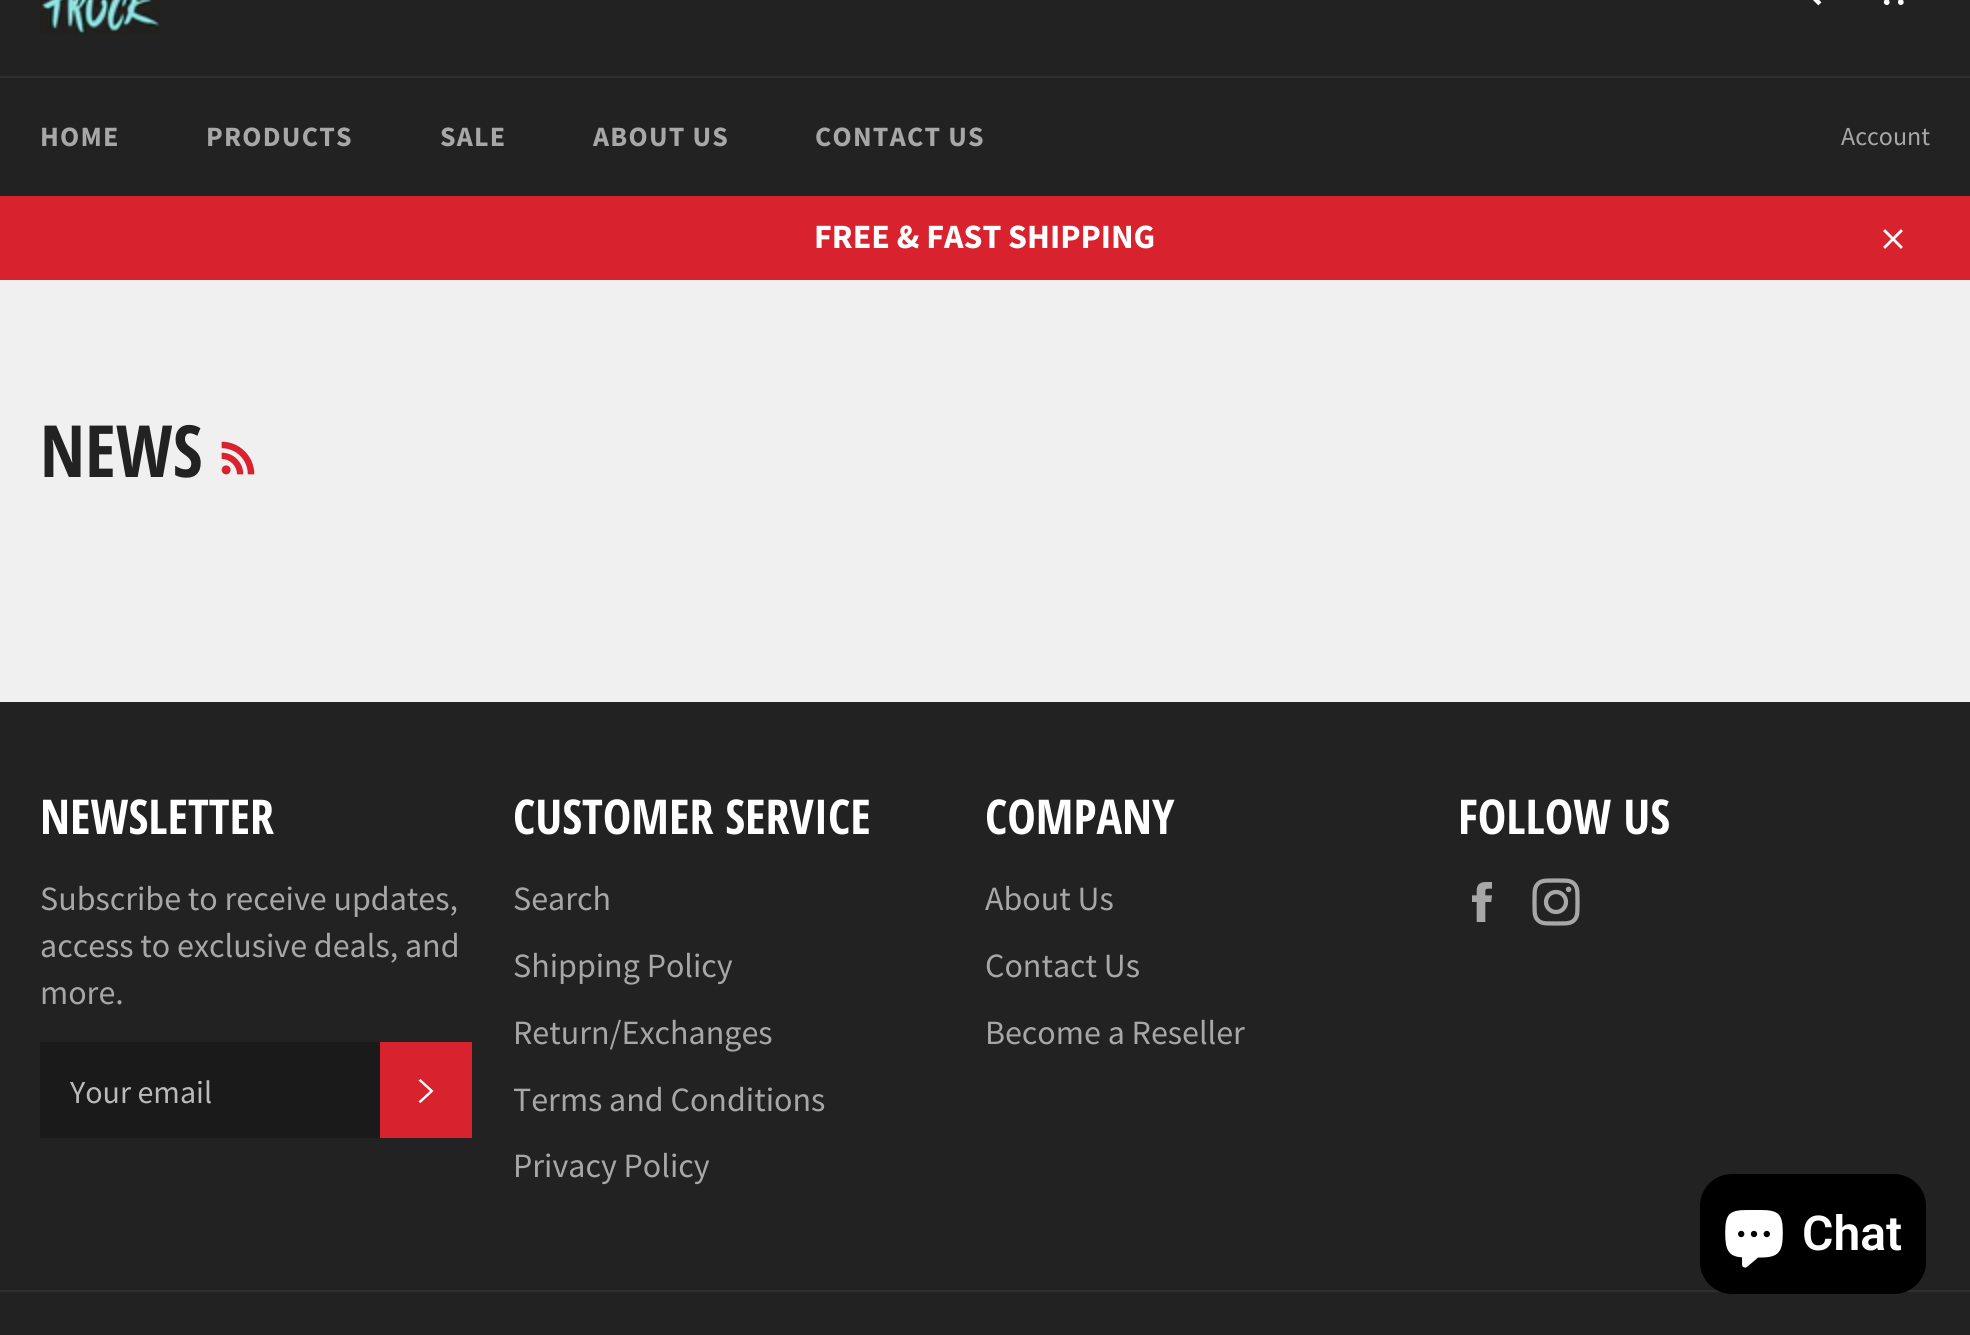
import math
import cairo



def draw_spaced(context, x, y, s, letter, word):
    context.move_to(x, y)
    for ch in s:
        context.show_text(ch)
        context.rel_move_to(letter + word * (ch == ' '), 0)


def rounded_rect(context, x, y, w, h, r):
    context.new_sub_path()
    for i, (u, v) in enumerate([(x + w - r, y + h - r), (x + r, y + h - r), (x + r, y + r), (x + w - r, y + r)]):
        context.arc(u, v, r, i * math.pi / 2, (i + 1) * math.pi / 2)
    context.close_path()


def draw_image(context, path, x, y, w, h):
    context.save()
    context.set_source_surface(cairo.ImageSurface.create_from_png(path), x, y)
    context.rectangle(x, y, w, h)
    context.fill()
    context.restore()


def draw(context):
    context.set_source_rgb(240 / 255, 240 / 255, 240 / 255)
    context.paint()
    context.set_source_rgb(34 / 255, 34 / 255, 34 / 255)
    context.rectangle(0, 0, 1970, 76)
    context.fill()
    draw_image(context, "images/1.png", 40, 0, 120, 34)
    draw_image(context, "images/2.png", 1813, 0, 9, 6)
    draw_image(context, "images/3.png", 1883, 0, 21, 5)
    context.rectangle(0, 78, 1970, 118)
    context.fill()
    context.set_source_rgb(47 / 255, 47 / 255, 47 / 255)
    context.rectangle(0, 76, 1970, 2)
    context.fill()
    context.set_source_rgb(216 / 255, 35 / 255, 47 / 255)
    context.rectangle(0, 196, 1970, 84)
    context.fill()
    draw_image(context, "images/4.png", 1883, 229, 20, 20)
    draw_image(context, "images/5.png", 221, 441, 34, 34)
    context.set_source_rgb(34 / 255, 34 / 255, 34 / 255)
    context.rectangle(0, 702, 1970, 633)
    context.fill()
    context.set_source_rgb(26 / 255, 26 / 255, 26 / 255)
    context.rectangle(40, 1042, 340, 96)
    context.fill()
    context.set_source_rgb(216 / 255, 35 / 255, 47 / 255)
    context.rectangle(380, 1042, 92, 96)
    context.fill()
    context.set_source_rgb(1, 1, 1)
    context.new_path()
    context.move_to(418.5, 1080.5)
    context.line_to(420.5, 1079)
    context.line_to(433.5, 1091)
    context.line_to(420.5, 1103)
    context.line_to(418.5, 1101.5)
    context.line_to(430, 1091)
    context.close_path()
    context.fill()
    draw_image(context, "images/6.png", 1472, 882, 20, 40)
    draw_image(context, "images/7.png", 1532, 878, 48, 48)
    context.set_source_rgb(47 / 255, 47 / 255, 47 / 255)
    context.rectangle(0, 1290, 1970, 2)
    context.fill()
    context.set_source_rgb(0, 0, 0)
    rounded_rect(context, 1700, 1174, 226, 120, 32)
    context.fill()
    draw_image(context, "images/8.png", 1725, 1210, 58, 58)
    context.select_font_face("Source Sans Pro", cairo.FontSlant.NORMAL, cairo.FontWeight.BOLD)
    context.set_font_size(28)
    context.set_source_rgb(167 / 255, 167 / 255, 167 / 255)
    draw_spaced(context, 40, 146, "HOME", 1.25, 0)
    draw_spaced(context, 206, 146, "PRODUCTS", 1.25, 0)
    draw_spaced(context, 440, 146, "SALE", 1.25, 0)
    draw_spaced(context, 593, 146, "ABOUT US", 1.25, 0)
    draw_spaced(context, 815, 146, "CONTACT US", 1.25, 0)
    context.select_font_face("Source Sans Pro")
    context.set_font_size(26)
    context.move_to(1841, 145)
    context.show_text("Account")
    context.select_font_face("Source Sans Pro", cairo.FontSlant.NORMAL, cairo.FontWeight.BOLD)
    context.set_font_size(34)
    context.set_source_rgb(1, 1, 1)
    context.move_to(814, 248)
    context.show_text("FREE & FAST SHIPPING")
    context.select_font_face("Open Sans Condensed", cairo.FontSlant.NORMAL, cairo.FontWeight.BOLD)
    context.set_font_size(72)
    context.set_source_rgb(34 / 255, 34 / 255, 34 / 255)
    context.move_to(40, 477)
    context.show_text("NEWS")
    context.set_font_size(48)
    context.set_source_rgb(1, 1, 1)
    context.move_to(40, 834)
    context.show_text("NEWSLETTER")
    context.select_font_face("Source Sans Pro")
    context.set_font_size(34)
    context.set_source_rgb(167 / 255, 167 / 255, 167 / 255)
    context.move_to(40, 910)
    context.show_text("Subscribe to receive updates,")
    context.move_to(40, 957)
    context.show_text("access to exclusive deals, and")
    context.move_to(40, 1004)
    context.show_text("more.")
    context.set_font_size(32)
    context.set_source_rgb(186 / 255, 186 / 255, 186 / 255)
    context.move_to(70, 1103)
    context.show_text("Your email")
    context.select_font_face("Open Sans Condensed", cairo.FontSlant.NORMAL, cairo.FontWeight.BOLD)
    context.set_font_size(48)
    context.set_source_rgb(1, 1, 1)
    context.move_to(513, 834)
    context.show_text("CUSTOMER SERVICE")
    context.select_font_face("Source Sans Pro")
    context.set_font_size(34)
    context.set_source_rgb(167 / 255, 167 / 255, 167 / 255)
    context.move_to(513, 910)
    context.show_text("Search")
    context.move_to(513, 977)
    context.show_text("Shipping Policy")
    context.move_to(513, 1044)
    context.show_text("Return/Exchanges")
    context.move_to(513, 1111)
    context.show_text("Terms and Conditions")
    context.move_to(513, 1177)
    context.show_text("Privacy Policy")
    context.select_font_face("Open Sans Condensed", cairo.FontSlant.NORMAL, cairo.FontWeight.BOLD)
    context.set_font_size(48)
    context.set_source_rgb(1, 1, 1)
    context.move_to(985, 834)
    context.show_text("COMPANY")
    context.select_font_face("Source Sans Pro")
    context.set_font_size(34)
    context.set_source_rgb(167 / 255, 167 / 255, 167 / 255)
    context.move_to(985, 910)
    context.show_text("About Us")
    context.move_to(985, 977)
    context.show_text("Contact Us")
    context.move_to(985, 1044)
    context.show_text("Become a Reseller")
    context.select_font_face("Open Sans Condensed", cairo.FontSlant.NORMAL, cairo.FontWeight.BOLD)
    context.set_font_size(48)
    context.set_source_rgb(1, 1, 1)
    context.move_to(1458, 834)
    context.show_text("FOLLOW US")
    context.select_font_face("Roboto SemiBold")
    context.move_to(1802, 1250)
    context.show_text("Chat")


surface = cairo.ImageSurface(cairo.Format.RGB24, 1970, 1335)
context = cairo.Context(surface)
options = cairo.FontOptions()
options.set_hint_metrics(cairo.HintMetrics.OFF)
options.set_hint_style(cairo.HintStyle.NONE)
context.set_font_options(options)
context.set_miter_limit(4)
draw(context)
surface.write_to_png("out.png")
